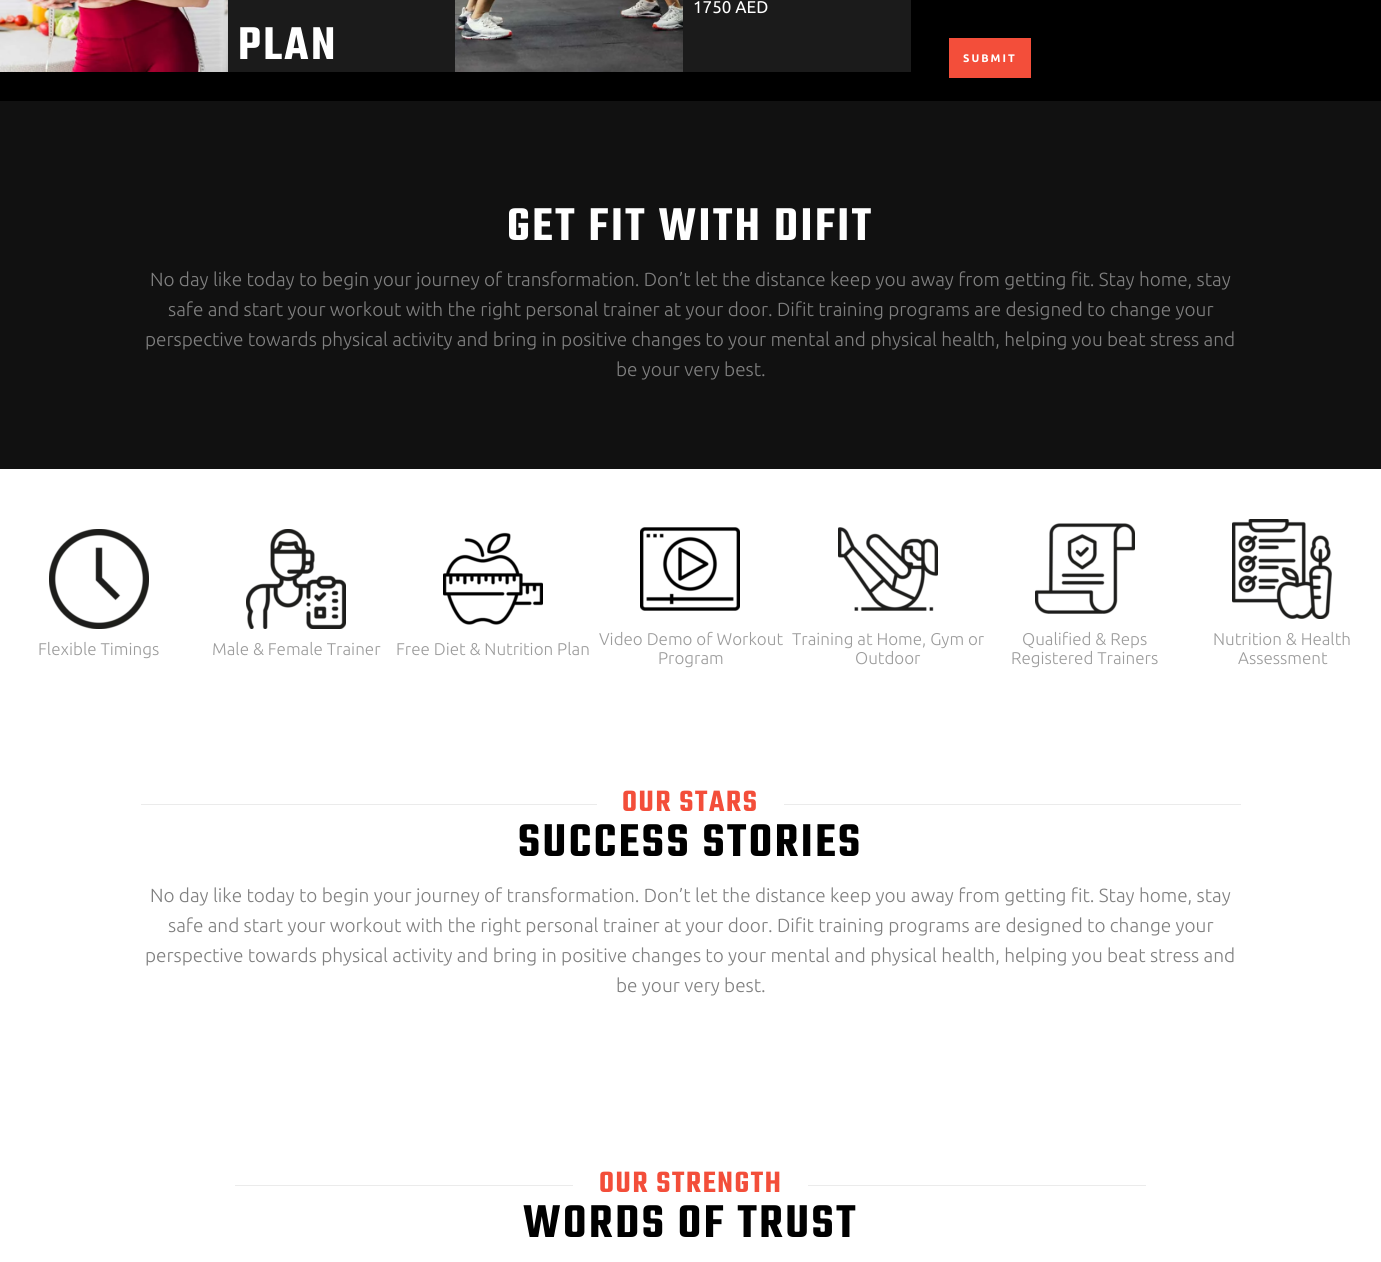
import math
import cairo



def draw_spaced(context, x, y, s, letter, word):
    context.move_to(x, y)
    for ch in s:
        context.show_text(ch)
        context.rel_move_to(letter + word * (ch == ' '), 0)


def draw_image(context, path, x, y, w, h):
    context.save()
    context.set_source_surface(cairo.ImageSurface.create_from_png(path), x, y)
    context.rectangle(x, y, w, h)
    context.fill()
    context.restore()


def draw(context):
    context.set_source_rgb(1, 1, 1)
    context.paint()
    context.set_source_rgb(0, 0, 0)
    context.rectangle(0, 0, 1381, 101)
    context.fill()
    draw_image(context, "images/1.png", 0, 0, 228, 72)
    draw_image(context, "images/2.png", 455, 0, 228, 72)
    context.set_source_rgb(27 / 255, 27 / 255, 27 / 255)
    context.rectangle(683, 0, 228, 72)
    context.fill()
    context.rectangle(228, 0, 227, 72)
    context.fill()
    context.set_source_rgb(243 / 255, 78 / 255, 58 / 255)
    context.rectangle(949, 38, 82, 40)
    context.fill()
    context.set_source_rgb(17 / 255, 17 / 255, 17 / 255)
    context.rectangle(0, 101, 1381, 368)
    context.fill()
    draw_image(context, "images/3.png", 49, 529, 100, 100)
    draw_image(context, "images/4.png", 246, 529, 100, 100)
    draw_image(context, "images/5.png", 443, 532, 100, 93)
    draw_image(context, "images/6.png", 640, 527, 100, 84)
    draw_image(context, "images/7.png", 838, 527, 100, 84)
    draw_image(context, "images/8.png", 1035, 523, 100, 91)
    draw_image(context, "images/9.png", 1232, 519, 100, 100)
    context.set_source_rgb(235 / 255, 235 / 255, 235 / 255)
    context.rectangle(141, 804, 456, 1)
    context.fill()
    context.rectangle(784, 804, 457, 1)
    context.fill()
    context.rectangle(235, 1185, 338, 1)
    context.fill()
    context.rectangle(808, 1185, 338, 1)
    context.fill()
    context.select_font_face("Ubuntu")
    context.set_font_size(17)
    context.set_source_rgb(1, 1, 1)
    context.move_to(693, 13)
    context.show_text("1750 AED")
    context.select_font_face("Teko SemiBold")
    context.set_font_size(50)
    draw_spaced(context, 238, 59, "PLAN", 2.5, 0)
    context.select_font_face("Ubuntu", cairo.FontSlant.NORMAL, cairo.FontWeight.BOLD)
    context.set_font_size(11)
    draw_spaced(context, 963, 62, "SUBMIT", 2, 0)
    context.select_font_face("Teko SemiBold")
    context.set_font_size(50)
    draw_spaced(context, 507, 240, "GET FIT WITH DIFIT", 2.5, 0)
    context.select_font_face("Ubuntu Light")
    context.set_font_size(19)
    context.set_source_rgb(128 / 255, 128 / 255, 128 / 255)
    context.move_to(150, 286)
    context.show_text("No day like today to begin your journey of transformation. Don’t let the distance keep you away from getting fit. Stay home, stay")
    context.move_to(168, 316)
    context.show_text("safe and start your workout with the right personal trainer at your door. Difit training programs are designed to change your")
    context.move_to(145, 346)
    context.show_text("perspective towards physical activity and bring in positive changes to your mental and physical health, helping you beat stress and")
    context.move_to(616, 376)
    context.show_text("be your very best.")
    context.set_font_size(17)
    context.set_source_rgb(156 / 255, 156 / 255, 156 / 255)
    context.move_to(38, 655)
    context.show_text("Flexible Timings")
    context.move_to(212, 655)
    context.show_text("Male & Female Trainer")
    context.move_to(396, 655)
    context.show_text("Free Diet & Nutrition Plan")
    context.move_to(599, 645)
    context.show_text("Video Demo of Workout")
    context.move_to(658, 664)
    context.show_text("Program")
    context.move_to(792, 645)
    context.show_text("Training at Home, Gym or")
    context.move_to(855, 664)
    context.show_text("Outdoor")
    context.move_to(1022, 645)
    context.show_text("Qualified & Reps")
    context.move_to(1011, 664)
    context.show_text("Registered Trainers")
    context.move_to(1213, 645)
    context.show_text("Nutrition & Health")
    context.move_to(1238, 664)
    context.show_text("Assessment")
    context.select_font_face("Teko SemiBold")
    context.set_font_size(32)
    context.set_source_rgb(243 / 255, 78 / 255, 58 / 255)
    draw_spaced(context, 622, 811, "OUR STARS", 1.6, 0)
    context.set_font_size(50)
    context.set_source_rgb(0, 0, 0)
    draw_spaced(context, 518, 856, "SUCCESS STORIES", 2.5, 0)
    context.select_font_face("Ubuntu Light")
    context.set_font_size(19)
    context.set_source_rgb(128 / 255, 128 / 255, 128 / 255)
    context.move_to(150, 902)
    context.show_text("No day like today to begin your journey of transformation. Don’t let the distance keep you away from getting fit. Stay home, stay")
    context.move_to(168, 932)
    context.show_text("safe and start your workout with the right personal trainer at your door. Difit training programs are designed to change your")
    context.move_to(145, 962)
    context.show_text("perspective towards physical activity and bring in positive changes to your mental and physical health, helping you beat stress and")
    context.move_to(616, 992)
    context.show_text("be your very best.")
    context.select_font_face("Teko SemiBold")
    context.set_font_size(32)
    context.set_source_rgb(243 / 255, 78 / 255, 58 / 255)
    draw_spaced(context, 599, 1192, "OUR STRENGTH", 1.6, 0)
    context.set_font_size(50)
    context.set_source_rgb(0, 0, 0)
    draw_spaced(context, 523, 1237, "WORDS OF TRUST", 2.5, 0)


surface = cairo.ImageSurface(cairo.Format.RGB24, 1381, 1262)
context = cairo.Context(surface)
options = cairo.FontOptions()
options.set_hint_metrics(cairo.HintMetrics.OFF)
options.set_hint_style(cairo.HintStyle.NONE)
context.set_font_options(options)
context.set_miter_limit(4)
draw(context)
surface.write_to_png("out.png")
